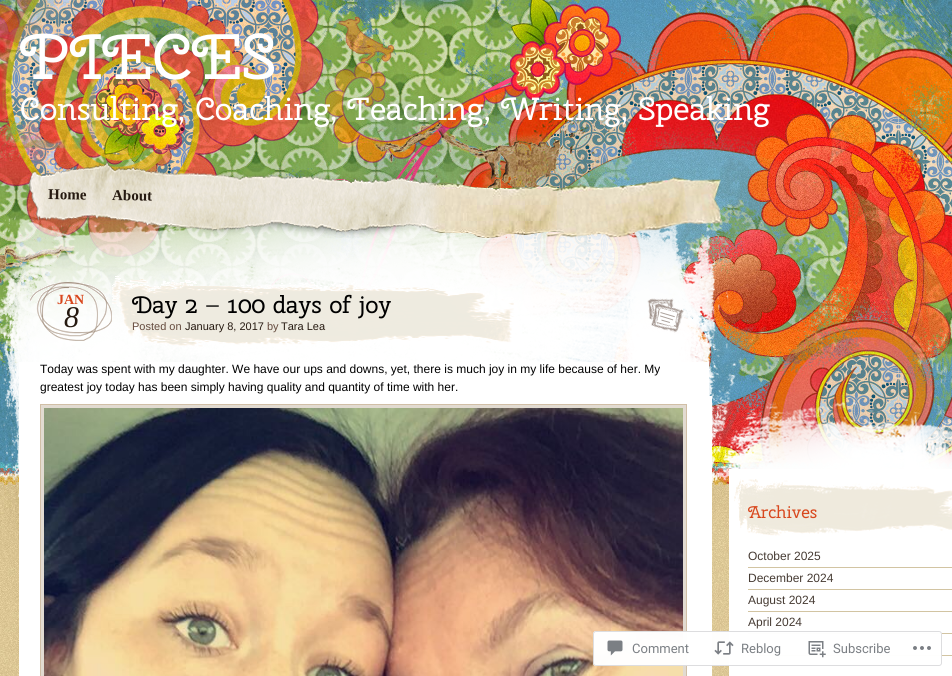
import math
import cairo



def rounded_rect(context, x, y, w, h, r):
    context.new_sub_path()
    for i, (u, v) in enumerate([(x + w - r, y + h - r), (x + r, y + h - r), (x + r, y + r), (x + w - r, y + r)]):
        context.arc(u, v, r, i * math.pi / 2, (i + 1) * math.pi / 2)
    context.close_path()


def draw_image(context, path, x, y, w, h):
    context.save()
    context.set_source_surface(cairo.ImageSurface.create_from_png(path), x, y)
    context.rectangle(x, y, w, h)
    context.fill()
    context.restore()


def draw(context):
    context.set_source_rgb(1, 1, 1)
    context.paint()
    draw_image(context, "images/1.png", 0, 0, 952, 676)
    draw_image(context, "images/3.png", 0, 202, 952, 474)
    draw_image(context, "images/2.png", 27, 161, 695, 77)
    context.set_source_rgb(1, 1, 1)
    context.rectangle(709, 396, 3, 280)
    context.fill()
    draw_image(context, "images/4.png", 30, 282, 82, 59)
    draw_image(context, "images/5.png", 112, 276, 402, 71)
    draw_image(context, "images/6.png", 647, 298, 37, 35)
    context.set_source_rgb(226 / 255, 219 / 255, 209 / 255)
    context.rectangle(40.5, 404.5, 646, 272)
    context.fill_preserve()
    context.set_source_rgb(209 / 255, 191 / 255, 166 / 255)
    context.set_line_width(1)
    context.stroke()
    draw_image(context, "images/7.png", 44, 408, 639, 268)
    draw_image(context, "images/8.png", 734, 479, 218, 57)
    context.set_source_rgb(210 / 255, 196 / 255, 162 / 255)
    context.rectangle(748, 567, 204, 1)
    context.fill()
    context.rectangle(748, 589, 204, 1)
    context.fill()
    context.rectangle(748, 611, 204, 1)
    context.fill()
    context.rectangle(748, 633, 204, 1)
    context.fill()
    context.rectangle(748, 655, 204, 1)
    context.fill()
    context.set_source_rgba(1, 1, 1, 0.98)
    rounded_rect(context, 593, 631, 349, 35, 3)
    context.fill()
    rounded_rect(context, 593.5, 631.5, 348, 34, 2.5)
    context.set_source_rgba(220 / 255, 220 / 255, 222 / 255, 0.98)
    context.stroke()
    draw_image(context, "images/9.png", 607, 640, 16, 16)
    draw_image(context, "images/10.png", 714, 641, 20, 14)
    draw_image(context, "images/11.png", 808, 641, 18, 17)
    draw_image(context, "images/12.png", 913, 646, 18, 4)
    context.select_font_face("Cherry Swash")
    context.set_font_size(64)
    context.set_source_rgb(1, 1, 1)
    context.move_to(20, 79)
    context.show_text("PIECES")
    context.set_font_size(32)
    context.move_to(20, 120)
    context.show_text("Consulting, Coaching, Teaching, Writing, Speaking")
    context.select_font_face("Liberation Serif", cairo.FontSlant.NORMAL, cairo.FontWeight.BOLD)
    context.set_font_size(15)
    context.set_source_rgb(38 / 255, 26 / 255, 17 / 255)
    context.save()
    context.translate(48, 199)
    context.rotate(1 * math.pi / 180)
    context.move_to(0, 0)
    context.show_text("Home")
    context.restore()
    context.save()
    context.translate(112, 200)
    context.rotate(1 * math.pi / 180)
    context.move_to(0, 0)
    context.show_text("About")
    context.restore()
    context.set_font_size(14)
    context.set_source_rgb(216 / 255, 71 / 255, 29 / 255)
    context.move_to(57, 304)
    context.show_text("JAN")
    context.select_font_face("Liberation Serif", cairo.FontSlant.ITALIC)
    context.set_font_size(30)
    context.set_source_rgb(38 / 255, 26 / 255, 17 / 255)
    context.move_to(64, 327)
    context.show_text("8")
    context.select_font_face("Cherry Swash")
    context.set_font_size(24)
    context.set_source_rgb(0, 0, 0)
    context.move_to(132, 313)
    context.show_text("Day 2 – 100 days of joy")
    context.select_font_face("Liberation Sans")
    context.set_font_size(11)
    context.set_source_rgb(100 / 255, 74 / 255, 61 / 255)
    context.move_to(132, 330)
    context.show_text("Posted on")
    context.set_source_rgb(38 / 255, 26 / 255, 17 / 255)
    context.move_to(185, 330)
    context.show_text("January 8, 2017")
    context.set_source_rgb(100 / 255, 74 / 255, 61 / 255)
    context.move_to(267, 330)
    context.show_text("by")
    context.set_source_rgb(38 / 255, 26 / 255, 17 / 255)
    context.move_to(281, 330)
    context.show_text("Tara Lea")
    context.set_font_size(12)
    context.set_source_rgb(0, 0, 0)
    context.move_to(40, 373)
    context.show_text("Today was spent with my daughter. We have our ups and downs, yet, there is much joy in my life because of her. My")
    context.move_to(40, 391)
    context.show_text("greatest joy today has been simply having quality and quantity of time with her.")
    context.select_font_face("Cherry Swash")
    context.set_font_size(17)
    context.set_source_rgb(216 / 255, 71 / 255, 29 / 255)
    context.move_to(748, 518)
    context.show_text("Archives")
    context.select_font_face("Liberation Sans")
    context.set_font_size(12)
    context.set_source_rgb(70 / 255, 59 / 255, 51 / 255)
    context.move_to(748, 560)
    context.show_text("October 2025")
    context.move_to(748, 582)
    context.show_text("December 2024")
    context.move_to(748, 604)
    context.show_text("August 2024")
    context.move_to(748, 626)
    context.show_text("April 2024")
    context.select_font_face("Roboto")
    context.set_font_size(13)
    context.set_source_rgb(123 / 255, 127 / 255, 132 / 255)
    context.move_to(632, 653)
    context.show_text("Comment")
    context.move_to(741, 653)
    context.show_text("Reblog")
    context.move_to(833, 653)
    context.show_text("Subscribe")


surface = cairo.ImageSurface(cairo.Format.RGB24, 952, 676)
context = cairo.Context(surface)
options = cairo.FontOptions()
options.set_hint_metrics(cairo.HintMetrics.OFF)
options.set_hint_style(cairo.HintStyle.NONE)
context.set_font_options(options)
context.set_miter_limit(4)
draw(context)
surface.write_to_png("out.png")
